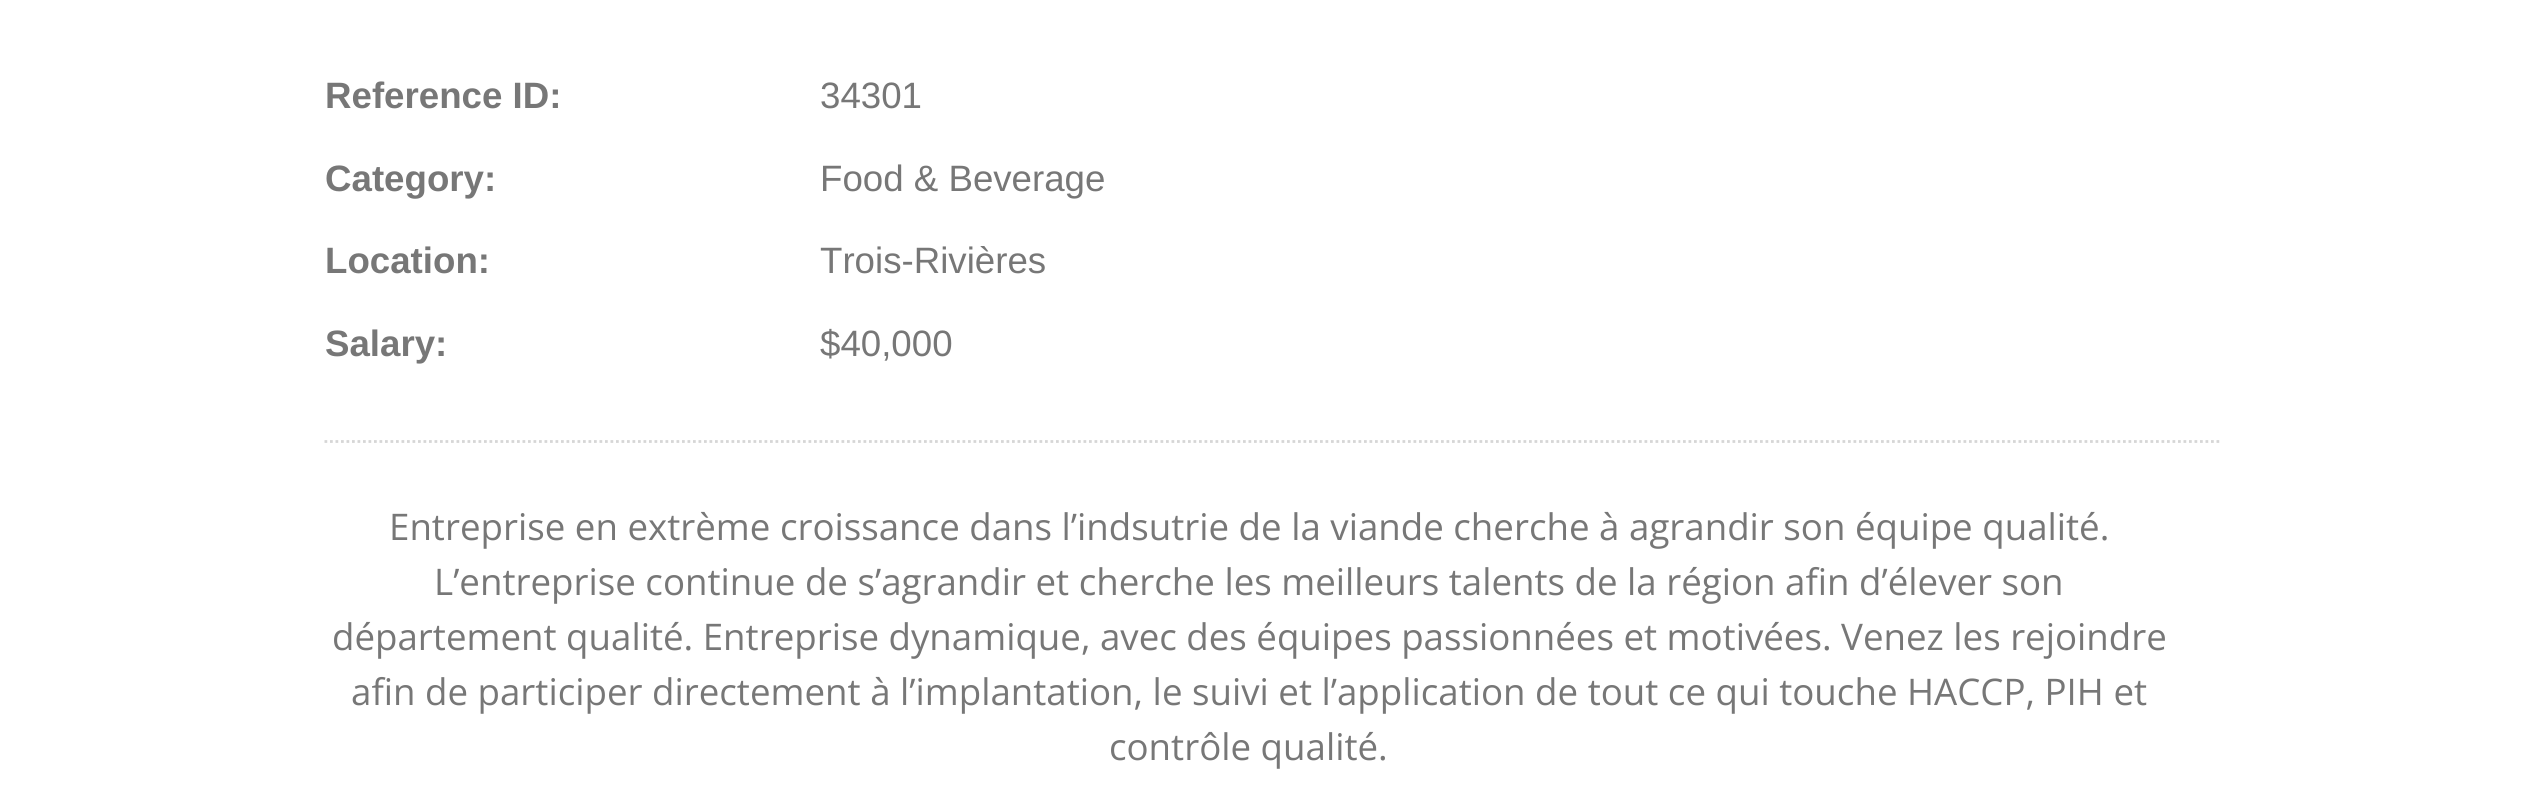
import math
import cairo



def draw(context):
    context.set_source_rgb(1, 1, 1)
    context.paint()
    context.new_path()
    context.move_to(324.5, 441.5)
    context.line_to(2222, 441.5)
    context.set_source_rgb(214 / 255, 214 / 255, 214 / 255)
    context.set_line_width(2.8)
    context.set_dash([2.75, 2.75])
    context.stroke()
    context.select_font_face("Liberation Sans", cairo.FontSlant.NORMAL, cairo.FontWeight.BOLD)
    context.set_font_size(36.67)
    context.set_source_rgb(119 / 255, 119 / 255, 119 / 255)
    context.move_to(325, 108)
    context.show_text("Reference ID:")
    context.select_font_face("Liberation Sans")
    context.move_to(820, 108)
    context.show_text("34301")
    context.select_font_face("Liberation Sans", cairo.FontSlant.NORMAL, cairo.FontWeight.BOLD)
    context.move_to(325, 191)
    context.show_text("Category:")
    context.select_font_face("Liberation Sans")
    context.move_to(820, 191)
    context.show_text("Food & Beverage")
    context.select_font_face("Liberation Sans", cairo.FontSlant.NORMAL, cairo.FontWeight.BOLD)
    context.move_to(325, 273)
    context.show_text("Location:")
    context.select_font_face("Liberation Sans")
    context.move_to(820, 273)
    context.show_text("Trois-Rivières")
    context.select_font_face("Liberation Sans", cairo.FontSlant.NORMAL, cairo.FontWeight.BOLD)
    context.move_to(325, 356)
    context.show_text("Salary:")
    context.select_font_face("Liberation Sans")
    context.move_to(820, 356)
    context.show_text("$40,000")
    context.select_font_face("Open Sans")
    context.move_to(389, 540)
    context.show_text("Entreprise en extrème croissance dans l’indsutrie de la viande cherche à agrandir son équipe qualité.")
    context.move_to(434, 595)
    context.show_text("L’entreprise continue de s’agrandir et cherche les meilleurs talents de la région afin d’élever son")
    context.move_to(332, 650)
    context.show_text("département qualité. Entreprise dynamique, avec des équipes passionnées et motivées. Venez les rejoindre")
    context.move_to(351, 705)
    context.show_text("afin de participer directement à l’implantation, le suivi et l’application de tout ce qui touche HACCP, PIH et")
    context.move_to(1109, 760)
    context.show_text("contrôle qualité.")


surface = cairo.ImageSurface(cairo.Format.RGB24, 2546, 812)
context = cairo.Context(surface)
options = cairo.FontOptions()
options.set_hint_metrics(cairo.HintMetrics.OFF)
options.set_hint_style(cairo.HintStyle.NONE)
context.set_font_options(options)
context.set_miter_limit(4)
draw(context)
surface.write_to_png("out.png")
